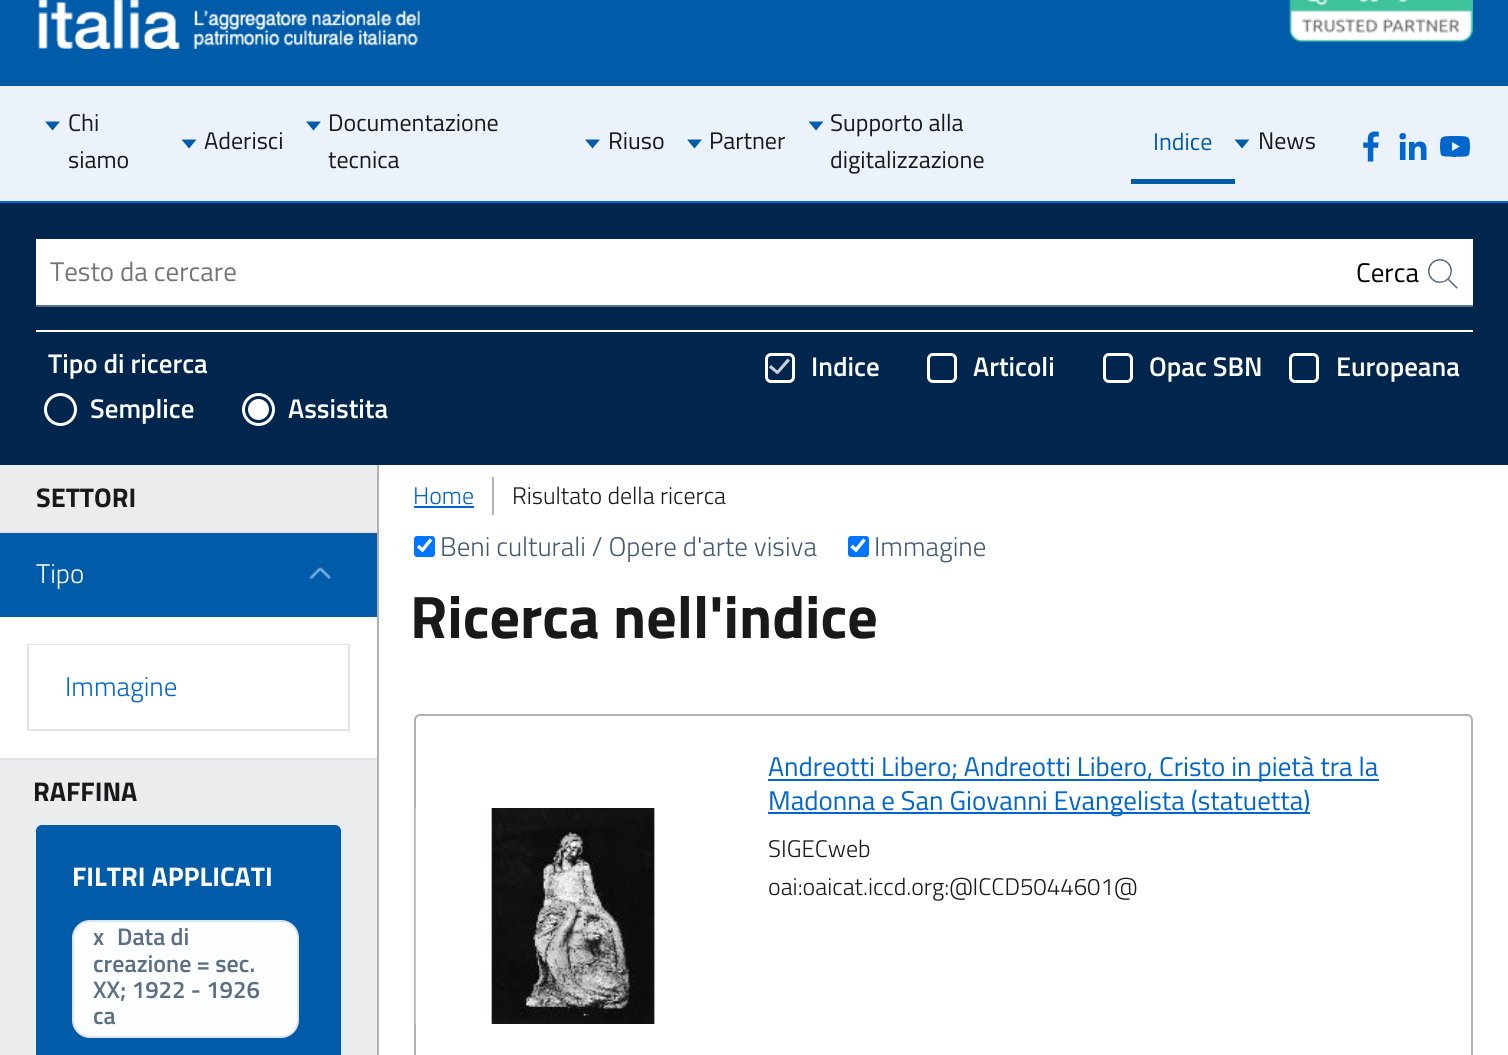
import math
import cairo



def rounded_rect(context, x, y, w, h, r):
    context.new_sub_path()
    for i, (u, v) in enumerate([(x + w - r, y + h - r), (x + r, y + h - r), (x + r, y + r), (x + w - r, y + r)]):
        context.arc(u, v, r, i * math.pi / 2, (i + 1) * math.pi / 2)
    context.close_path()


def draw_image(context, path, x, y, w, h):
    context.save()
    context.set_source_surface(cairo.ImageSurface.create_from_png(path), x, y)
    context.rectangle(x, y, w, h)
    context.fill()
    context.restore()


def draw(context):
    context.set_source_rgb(1, 1, 1)
    context.paint()
    context.set_source_rgb(0, 91 / 255, 169 / 255)
    context.rectangle(0, 0, 1508, 86)
    context.fill()
    draw_image(context, "images/1.png", 38, 0, 382, 49)
    draw_image(context, "images/2.png", 1288, 0, 185, 43)
    context.set_source_rgb(235 / 255, 242 / 255, 250 / 255)
    context.rectangle(0, 86, 1508, 115)
    context.fill()
    context.set_source_rgb(0, 102 / 255, 204 / 255)
    context.rectangle(0, 201, 1508, 2)
    context.fill()
    context.set_source_rgb(0, 91 / 255, 169 / 255)
    context.new_path()
    context.move_to(45, 121.5)
    context.line_to(60, 121.5)
    context.line_to(52.5, 130.5)
    context.close_path()
    context.fill()
    context.new_path()
    context.move_to(181.5, 139.5)
    context.line_to(196.5, 139.5)
    context.line_to(189, 148.5)
    context.close_path()
    context.fill()
    context.new_path()
    context.move_to(306, 121.5)
    context.line_to(321, 121.5)
    context.line_to(313.5, 130.5)
    context.close_path()
    context.fill()
    context.new_path()
    context.move_to(585, 139.5)
    context.line_to(600, 139.5)
    context.line_to(592.5, 148.5)
    context.close_path()
    context.fill()
    context.new_path()
    context.move_to(687, 139.5)
    context.line_to(702, 139.5)
    context.line_to(694.5, 148.5)
    context.close_path()
    context.fill()
    context.new_path()
    context.move_to(808.5, 121.5)
    context.line_to(823.5, 121.5)
    context.line_to(816, 130.5)
    context.close_path()
    context.fill()
    context.rectangle(1131, 179, 104, 5)
    context.fill()
    context.new_path()
    context.move_to(1234.5, 139.5)
    context.line_to(1249.5, 139.5)
    context.line_to(1242, 148.5)
    context.close_path()
    context.fill()
    draw_image(context, "images/3.png", 1363, 131, 16, 31)
    draw_image(context, "images/4.png", 1399, 133, 28, 27)
    draw_image(context, "images/5.png", 1440, 136, 30, 21)
    context.set_source_rgb(0, 38 / 255, 77 / 255)
    context.rectangle(0, 203, 1508, 262)
    context.fill()
    context.set_source_rgb(1, 1, 1)
    context.rectangle(36, 330, 1437, 2)
    context.fill()
    context.rectangle(36, 239, 1437, 66)
    context.fill()
    context.set_source_rgb(92 / 255, 111 / 255, 130 / 255)
    context.rectangle(36, 305, 1437, 2)
    context.fill()
    draw_image(context, "images/6.png", 1428, 259, 30, 30)
    context.arc(60.5, 409.5, 15, 0, 2 * math.pi)
    context.set_source_rgb(1, 1, 1)
    context.set_line_width(3)
    context.stroke()
    context.arc(258.5, 409.5, 15, 0, 2 * math.pi)
    context.stroke()
    context.arc(258.5, 409.5, 9.5, 0, 2 * math.pi)
    context.fill_preserve()
    context.set_line_width(2)
    context.stroke()
    rounded_rect(context, 766.5, 354.5, 27, 27, 4.5)
    context.set_line_width(3)
    context.stroke()
    context.set_source_rgb(204 / 255, 212 / 255, 219 / 255)
    context.new_path()
    context.move_to(787.5, 358.5)
    context.line_to(790, 360.5)
    context.line_to(778, 374)
    context.line_to(776, 372)
    context.close_path()
    context.fill()
    context.new_path()
    context.move_to(771, 365)
    context.line_to(779, 372)
    context.line_to(777, 374)
    context.line_to(769, 367.5)
    context.close_path()
    context.fill()
    rounded_rect(context, 928.5, 354.5, 27, 27, 4.5)
    context.set_source_rgb(1, 1, 1)
    context.stroke()
    rounded_rect(context, 1104.5, 354.5, 27, 27, 4.5)
    context.stroke()
    rounded_rect(context, 1290.5, 354.5, 27, 27, 4.5)
    context.stroke()
    context.set_source_rgb(235 / 255, 236 / 255, 237 / 255)
    context.rectangle(0, 465, 377, 590)
    context.fill()
    context.set_source_rgb(177 / 255, 177 / 255, 179 / 255)
    context.rectangle(377, 465, 2, 590)
    context.fill()
    context.set_source_rgb(1, 1, 1)
    context.rectangle(0, 617, 377, 141)
    context.fill()
    context.set_source_rgb(227 / 255, 228 / 255, 230 / 255)
    context.rectangle(0, 758, 377, 2)
    context.fill()
    context.set_source_rgb(0, 91 / 255, 169 / 255)
    context.rectangle(0, 533, 377, 84)
    context.fill()
    context.set_source_rgb(227 / 255, 228 / 255, 230 / 255)
    context.rectangle(0, 531, 377, 2)
    context.fill()
    draw_image(context, "images/7.png", 309, 567, 22, 13)
    context.rectangle(28, 645, 321, 85)
    context.set_line_width(2)
    context.stroke()
    context.set_source_rgb(1, 1, 1)
    context.rectangle(29, 645, 319, 1)
    context.fill()
    context.set_source_rgb(0, 91 / 255, 169 / 255)
    rounded_rect(context, 36, 825, 305, 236, 6)
    context.fill()
    context.set_source_rgb(252 / 255, 253 / 255, 1)
    rounded_rect(context, 73, 921, 225, 116, 17)
    context.fill_preserve()
    context.set_source_rgb(223 / 255, 228 / 255, 242 / 255)
    context.stroke()
    context.set_source_rgb(177 / 255, 177 / 255, 179 / 255)
    context.rectangle(492, 477, 2, 38)
    context.fill()
    context.set_source_rgb(0, 102 / 255, 204 / 255)
    context.rectangle(414, 506, 60, 2)
    context.fill()
    context.set_source_rgb(0, 117 / 255, 1)
    rounded_rect(context, 414, 536, 21, 21, 3)
    context.fill()
    context.new_path()
    context.move_to(418, 546)
    context.line_to(422.5, 550)
    context.line_to(431, 539.5)
    context.set_source_rgb(1, 1, 1)
    context.set_line_width(3.4)
    context.stroke()
    context.set_source_rgb(0, 117 / 255, 1)
    rounded_rect(context, 848, 536, 21, 21, 3)
    context.fill()
    context.new_path()
    context.move_to(851.5, 546)
    context.line_to(856, 550)
    context.line_to(864.5, 539.5)
    context.set_source_rgb(1, 1, 1)
    context.stroke()
    rounded_rect(context, 415, 715, 1057, 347, 5)
    context.set_source_rgb(177 / 255, 177 / 255, 179 / 255)
    context.set_line_width(2)
    context.stroke()
    draw_image(context, "images/8.png", 415, 808, 240, 216)
    context.set_source_rgb(0, 102 / 255, 204 / 255)
    context.rectangle(768, 779, 611, 2)
    context.fill()
    context.rectangle(768, 812, 542, 2)
    context.fill()
    context.select_font_face("Titillium Web")
    context.set_font_size(24)
    context.set_source_rgb(25 / 255, 25 / 255, 26 / 255)
    context.move_to(68, 131)
    context.show_text("Chi")
    context.move_to(68, 168)
    context.show_text("siamo")
    context.move_to(204, 149)
    context.show_text("Aderisci")
    context.move_to(328, 131)
    context.show_text("Documentazione")
    context.move_to(328, 168)
    context.show_text("tecnica")
    context.move_to(608, 149)
    context.show_text("Riuso")
    context.move_to(709, 149)
    context.show_text("Partner")
    context.move_to(830, 131)
    context.show_text("Supporto alla")
    context.move_to(830, 168)
    context.show_text("digitalizzazione")
    context.set_source_rgb(0, 91 / 255, 169 / 255)
    context.move_to(1153, 150)
    context.show_text("Indice")
    context.set_source_rgb(25 / 255, 25 / 255, 26 / 255)
    context.move_to(1258, 149)
    context.show_text("News")
    context.set_font_size(27)
    context.set_source_rgb(117 / 255, 117 / 255, 117 / 255)
    context.move_to(50, 281)
    context.show_text("Testo da cercare")
    context.set_source_rgb(0, 0, 0)
    context.move_to(1356, 282)
    context.show_text("Cerca")
    context.select_font_face("Titillium Web SemiBold")
    context.set_source_rgb(1, 1, 1)
    context.move_to(48, 373)
    context.show_text("Tipo di ricerca")
    context.move_to(90, 418)
    context.show_text("Semplice")
    context.move_to(288, 418)
    context.show_text("Assistita")
    context.move_to(811, 376)
    context.show_text("Indice")
    context.move_to(973, 376)
    context.show_text("Articoli")
    context.move_to(1149, 376)
    context.show_text("Opac SBN")
    context.move_to(1336, 376)
    context.show_text("Europeana")
    context.select_font_face("Titillium Web", cairo.FontSlant.NORMAL, cairo.FontWeight.BOLD)
    context.set_source_rgb(25 / 255, 25 / 255, 26 / 255)
    context.move_to(36, 507)
    context.show_text("SETTORI")
    context.select_font_face("Titillium Web Light")
    context.set_source_rgb(1, 1, 1)
    context.move_to(36, 583)
    context.show_text("Tipo")
    context.set_source_rgb(0, 102 / 255, 204 / 255)
    context.move_to(65, 696)
    context.show_text("Immagine")
    context.select_font_face("Titillium Web", cairo.FontSlant.NORMAL, cairo.FontWeight.BOLD)
    context.set_source_rgb(25 / 255, 25 / 255, 26 / 255)
    context.move_to(33, 801)
    context.show_text("RAFFINA")
    context.set_source_rgb(1, 1, 1)
    context.move_to(72, 886)
    context.show_text("FILTRI APPLICATI")
    context.select_font_face("Titillium Web SemiBold")
    context.set_font_size(24)
    context.set_source_rgb(92 / 255, 111 / 255, 130 / 255)
    context.move_to(93, 945)
    context.show_text("x")
    context.move_to(117, 945)
    context.show_text("Data di")
    context.move_to(93, 972)
    context.show_text("creazione = sec.")
    context.move_to(93, 998)
    context.show_text("XX; 1922 - 1926")
    context.move_to(93, 1024)
    context.show_text("ca")
    context.select_font_face("Titillium Web Light")
    context.set_source_rgb(0, 102 / 255, 204 / 255)
    context.move_to(413, 504)
    context.show_text("Home")
    context.set_source_rgb(25 / 255, 25 / 255, 26 / 255)
    context.move_to(512, 504)
    context.show_text("Risultato della ricerca")
    context.set_font_size(27)
    context.set_source_rgb(67 / 255, 90 / 255, 112 / 255)
    context.move_to(440, 556)
    context.show_text("Beni culturali / Opere d'arte visiva")
    context.move_to(874, 556)
    context.show_text("Immagine")
    context.select_font_face("Titillium Web", cairo.FontSlant.NORMAL, cairo.FontWeight.BOLD)
    context.set_font_size(60)
    context.set_source_rgb(25 / 255, 25 / 255, 26 / 255)
    context.move_to(410, 638)
    context.show_text("Ricerca nell'indice")
    context.select_font_face("Titillium Web")
    context.set_font_size(27)
    context.set_source_rgb(0, 102 / 255, 204 / 255)
    context.move_to(768, 776)
    context.show_text("Andreotti Libero; Andreotti Libero, Cristo in pietà tra la")
    context.move_to(768, 810)
    context.show_text("Madonna e San Giovanni Evangelista (statuetta)")
    context.select_font_face("Titillium Web Light")
    context.set_font_size(24)
    context.set_source_rgb(25 / 255, 25 / 255, 26 / 255)
    context.move_to(768, 857)
    context.show_text("SIGECweb")
    context.move_to(768, 895)
    context.show_text("oai:oaicat.iccd.org:@ICCD5044601@")


surface = cairo.ImageSurface(cairo.Format.RGB24, 1508, 1055)
context = cairo.Context(surface)
options = cairo.FontOptions()
options.set_hint_metrics(cairo.HintMetrics.OFF)
options.set_hint_style(cairo.HintStyle.NONE)
context.set_font_options(options)
context.set_miter_limit(4)
draw(context)
surface.write_to_png("out.png")
